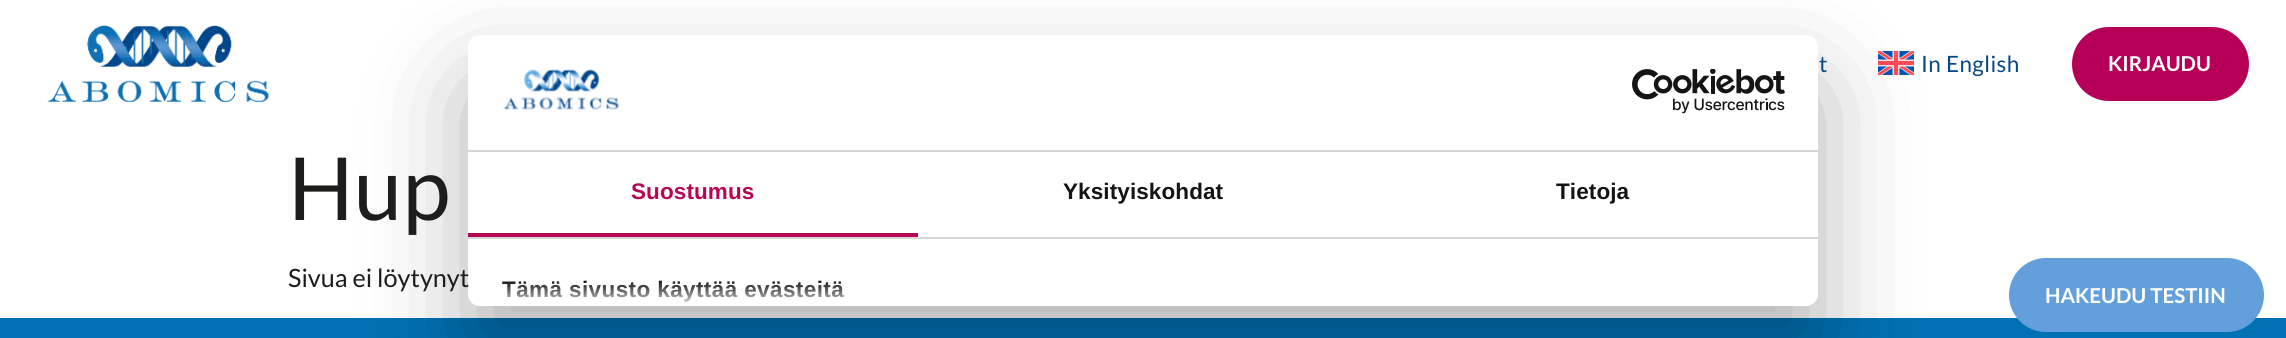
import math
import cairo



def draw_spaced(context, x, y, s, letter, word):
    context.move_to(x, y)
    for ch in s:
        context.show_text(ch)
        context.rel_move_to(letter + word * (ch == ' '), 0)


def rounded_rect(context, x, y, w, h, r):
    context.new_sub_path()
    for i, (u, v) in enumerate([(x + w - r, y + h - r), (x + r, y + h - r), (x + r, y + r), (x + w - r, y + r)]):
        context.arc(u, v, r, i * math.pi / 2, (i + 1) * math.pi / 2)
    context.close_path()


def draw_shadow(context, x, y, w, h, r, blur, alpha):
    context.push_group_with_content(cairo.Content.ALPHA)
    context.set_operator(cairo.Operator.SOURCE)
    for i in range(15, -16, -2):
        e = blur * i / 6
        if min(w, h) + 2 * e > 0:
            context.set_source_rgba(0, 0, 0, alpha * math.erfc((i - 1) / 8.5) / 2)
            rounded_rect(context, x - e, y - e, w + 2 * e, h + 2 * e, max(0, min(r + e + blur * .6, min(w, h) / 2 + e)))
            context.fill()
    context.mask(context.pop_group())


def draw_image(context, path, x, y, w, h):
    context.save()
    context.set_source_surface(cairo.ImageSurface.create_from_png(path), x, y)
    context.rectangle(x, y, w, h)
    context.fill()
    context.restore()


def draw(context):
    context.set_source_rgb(1, 1, 1)
    context.paint()
    draw_image(context, "images/4.png", 1878, 51, 36, 24)
    gradient = cairo.LinearGradient(1143, 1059, 1143, 318)
    gradient.add_color_stop_rgba(0, 89 / 255, 149 / 255, 208 / 255, 1)
    gradient.add_color_stop_rgba(0.89, 0, 113 / 255, 179 / 255, 1)
    context.set_source(gradient)
    context.rectangle(0, 318, 2286, 20)
    context.fill()
    context.set_source_rgb(0, 0, 0)
    draw_shadow(context, 468, 83, 1350, 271, 12, 51, 0.3)
    context.set_source_rgb(1, 1, 1)
    rounded_rect(context, 468, 35, 1350, 271, 12)
    context.fill()
    context.set_source_rgb(214 / 255, 214 / 255, 214 / 255)
    context.rectangle(468, 150, 1350, 2)
    context.fill()
    draw_image(context, "images/1.png", 503, 69, 117, 41)
    draw_image(context, "images/2.png", 1632, 69, 153, 45)
    context.rectangle(468, 237, 1350, 2)
    context.fill()
    context.set_source_rgb(184 / 255, 6 / 255, 86 / 255)
    context.rectangle(468, 233, 450, 4)
    context.fill()
    context.set_source_rgb(1, 1, 1)
    context.rectangle(1807, 305, 2, 1)
    context.fill()
    draw_image(context, "images/3.png", 47, 25, 222, 77)
    context.set_source_rgb(182 / 255, 0, 87 / 255)
    rounded_rect(context, 2072, 27, 177, 74, 37)
    context.fill()
    context.set_source_rgb(99 / 255, 159 / 255, 218 / 255)
    rounded_rect(context, 2009, 258, 255, 74, 37)
    context.fill()
    context.select_font_face("Lato")
    context.set_font_size(87)
    context.set_source_rgb(29 / 255, 29 / 255, 27 / 255)
    context.move_to(288, 220)
    context.show_text("Hup")
    context.set_font_size(25.25)
    context.move_to(288, 287)
    context.show_text("Sivua ei löytynyt")
    context.select_font_face("Liberation Sans", cairo.FontSlant.NORMAL, cairo.FontWeight.BOLD)
    context.set_font_size(22.5)
    context.set_source_rgb(184 / 255, 6 / 255, 86 / 255)
    draw_spaced(context, 631, 199, "Suostumus", 0.1, 0)
    context.set_source_rgb(20 / 255, 20 / 255, 20 / 255)
    draw_spaced(context, 1063, 199, "Yksityiskohdat", 0.1, 0)
    draw_spaced(context, 1556, 199, "Tietoja", 0.1, 0)
    draw_spaced(context, 502, 297, "Tämä sivusto käyttää evästeitä", 0.4, 0)
    context.save()
    rounded_rect(context, 468, 35, 1350, 271, 12)
    context.clip()
    gradient = cairo.LinearGradient(1128, 326, 1128, 281)
    gradient.add_color_stop_rgba(0, 1, 1, 1, 1)
    gradient.add_color_stop_rgba(0.5, 1, 1, 1, 0.8)
    gradient.add_color_stop_rgba(1, 1, 1, 1, 0)
    context.set_source(gradient)
    context.rectangle(470, 282, 1317, 24)
    context.fill()
    context.restore()
    context.select_font_face("Lato")
    context.set_source_rgb(6 / 255, 72 / 255, 136 / 255)
    draw_spaced(context, 1819, 72, "t", 0.4, 0)
    draw_spaced(context, 1921, 72, "In English", 0.4, 0)
    context.select_font_face("Lato", cairo.FontSlant.NORMAL, cairo.FontWeight.BOLD)
    context.set_font_size(20.5)
    context.set_source_rgb(1, 1, 1)
    context.move_to(2108, 71)
    context.show_text("KIRJAUDU")
    context.move_to(2045, 303)
    context.show_text("HAKEUDU TESTIIN")


surface = cairo.ImageSurface(cairo.Format.RGB24, 2286, 338)
context = cairo.Context(surface)
options = cairo.FontOptions()
options.set_hint_metrics(cairo.HintMetrics.OFF)
options.set_hint_style(cairo.HintStyle.NONE)
context.set_font_options(options)
context.set_miter_limit(4)
draw(context)
surface.write_to_png("out.png")
